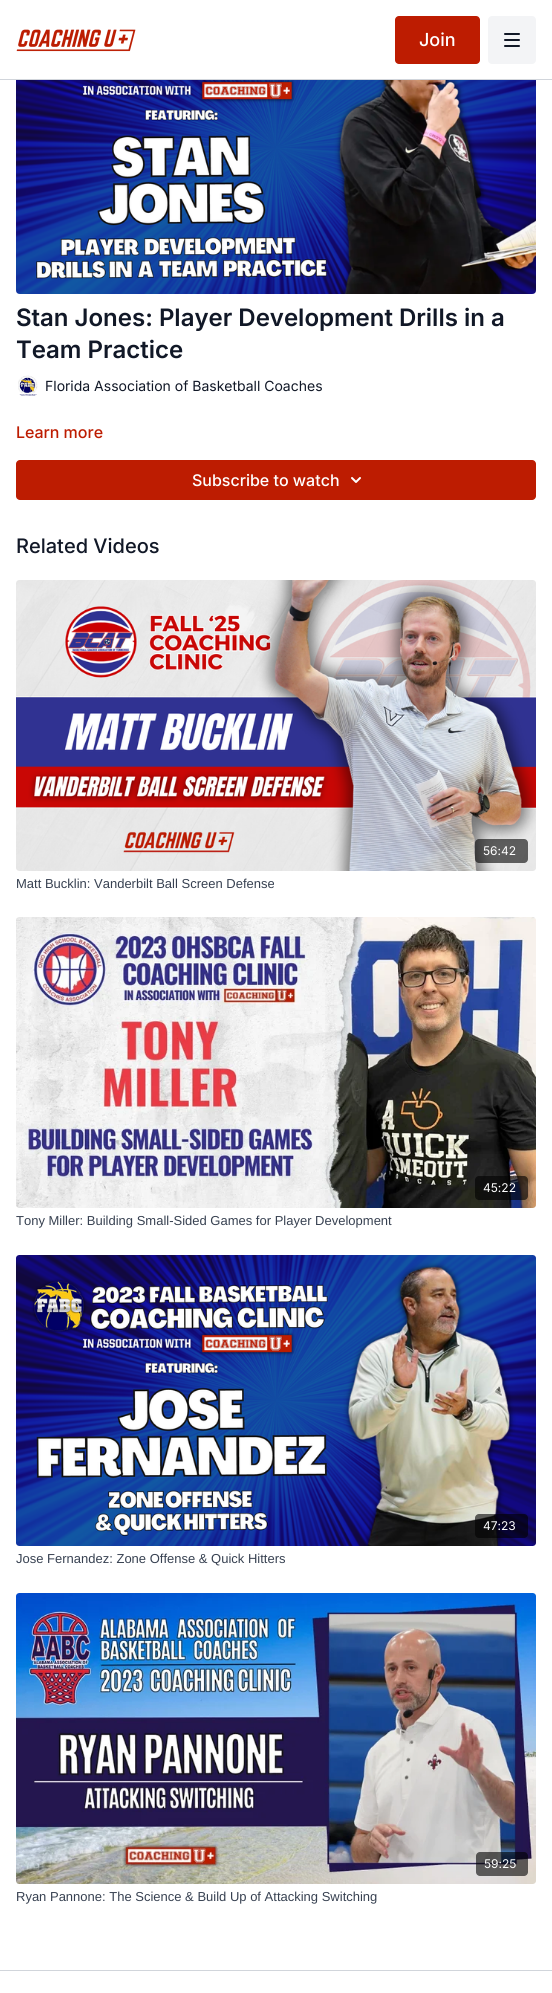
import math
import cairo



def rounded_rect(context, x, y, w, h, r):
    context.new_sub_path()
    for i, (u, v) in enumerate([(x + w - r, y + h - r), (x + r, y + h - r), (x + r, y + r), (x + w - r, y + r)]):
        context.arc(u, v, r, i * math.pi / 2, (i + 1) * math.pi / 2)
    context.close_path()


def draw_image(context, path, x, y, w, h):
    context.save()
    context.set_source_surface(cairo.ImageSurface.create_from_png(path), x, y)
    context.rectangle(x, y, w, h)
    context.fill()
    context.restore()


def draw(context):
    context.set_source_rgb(1, 1, 1)
    context.paint()
    context.set_source_rgb(209 / 255, 213 / 255, 219 / 255)
    context.rectangle(0, 79, 552, 1)
    context.fill()
    draw_image(context, "images/1.png", 16, 29, 120, 23)
    context.set_source_rgb(189 / 255, 28 / 255, 1 / 255)
    rounded_rect(context, 395, 16, 85, 48, 4)
    context.fill()
    context.set_source_rgb(243 / 255, 244 / 255, 246 / 255)
    rounded_rect(context, 488, 16, 48, 48, 4)
    context.fill()
    draw_image(context, "images/2.png", 504, 33, 16, 14)
    draw_image(context, "images/3.png", 16, 80, 520, 214)
    draw_image(context, "images/4.png", 18, 375, 20, 21)
    context.set_source_rgb(189 / 255, 28 / 255, 1 / 255)
    rounded_rect(context, 16, 460, 520, 40, 4)
    context.fill()
    draw_image(context, "images/5.png", 351, 477, 10, 6)
    draw_image(context, "images/6.png", 16, 580, 520, 291)
    context.set_source_rgba(0, 0, 0, 0.6)
    rounded_rect(context, 475, 839, 53, 24, 4)
    context.fill()
    draw_image(context, "images/7.png", 16, 917, 520, 291)
    rounded_rect(context, 475, 1176, 53, 24, 4)
    context.fill()
    draw_image(context, "images/8.png", 16, 1255, 520, 291)
    rounded_rect(context, 475, 1514, 53, 24, 4)
    context.fill()
    draw_image(context, "images/9.png", 16, 1593, 520, 291)
    rounded_rect(context, 476, 1852, 52, 24, 4)
    context.fill()
    context.set_source_rgb(209 / 255, 213 / 255, 219 / 255)
    context.rectangle(0, 1970, 552, 1)
    context.fill()
    context.select_font_face("Inter Medium")
    context.set_font_size(18)
    context.set_source_rgb(1, 1, 1)
    context.move_to(419, 46)
    context.show_text("Join")
    context.select_font_face("Inter SemiBold")
    context.set_font_size(24)
    context.set_source_rgb(17 / 255, 24 / 255, 39 / 255)
    context.move_to(16, 326)
    context.show_text("Stan Jones: Player Development Drills in a")
    context.move_to(16, 358)
    context.show_text("Team Practice")
    context.select_font_face("Inter")
    context.set_font_size(14)
    context.move_to(45, 391)
    context.show_text("Florida Association of Basketball Coaches")
    context.select_font_face("Inter Medium")
    context.set_font_size(16)
    context.set_source_rgb(189 / 255, 28 / 255, 1 / 255)
    context.move_to(16, 438)
    context.show_text("Learn more")
    context.set_source_rgb(1, 1, 1)
    context.move_to(192, 486)
    context.show_text("Subscribe to watch")
    context.set_font_size(20)
    context.set_source_rgb(17 / 255, 24 / 255, 39 / 255)
    context.move_to(16, 553)
    context.show_text("Related Videos")
    context.select_font_face("Inter")
    context.set_font_size(12)
    context.set_source_rgb(1, 1, 1)
    context.move_to(483, 855)
    context.show_text("56:42")
    context.select_font_face("Liberation Sans")
    context.set_font_size(13)
    context.set_source_rgb(55 / 255, 65 / 255, 81 / 255)
    context.move_to(16, 888)
    context.show_text("Matt Bucklin: Vanderbilt Ball Screen Defense")
    context.select_font_face("Inter")
    context.set_font_size(12)
    context.set_source_rgb(1, 1, 1)
    context.move_to(483, 1192)
    context.show_text("45:22")
    context.select_font_face("Liberation Sans")
    context.set_font_size(13)
    context.set_source_rgb(55 / 255, 65 / 255, 81 / 255)
    context.move_to(16, 1225)
    context.show_text("Tony Miller: Building Small-Sided Games for Player Development")
    context.select_font_face("Inter")
    context.set_font_size(12)
    context.set_source_rgb(1, 1, 1)
    context.move_to(483, 1530)
    context.show_text("47:23")
    context.select_font_face("Liberation Sans")
    context.set_font_size(13)
    context.set_source_rgb(55 / 255, 65 / 255, 81 / 255)
    context.move_to(16, 1563)
    context.show_text("Jose Fernandez: Zone Offense & Quick Hitters")
    context.select_font_face("Inter")
    context.set_font_size(12)
    context.set_source_rgb(1, 1, 1)
    context.move_to(484, 1868)
    context.show_text("59:25")
    context.select_font_face("Liberation Sans")
    context.set_font_size(13)
    context.set_source_rgb(55 / 255, 65 / 255, 81 / 255)
    context.move_to(16, 1901)
    context.show_text("Ryan Pannone: The Science & Build Up of Attacking Switching")


surface = cairo.ImageSurface(cairo.Format.RGB24, 552, 1993)
context = cairo.Context(surface)
options = cairo.FontOptions()
options.set_hint_metrics(cairo.HintMetrics.OFF)
options.set_hint_style(cairo.HintStyle.NONE)
context.set_font_options(options)
context.set_miter_limit(4)
draw(context)
surface.write_to_png("out.png")
